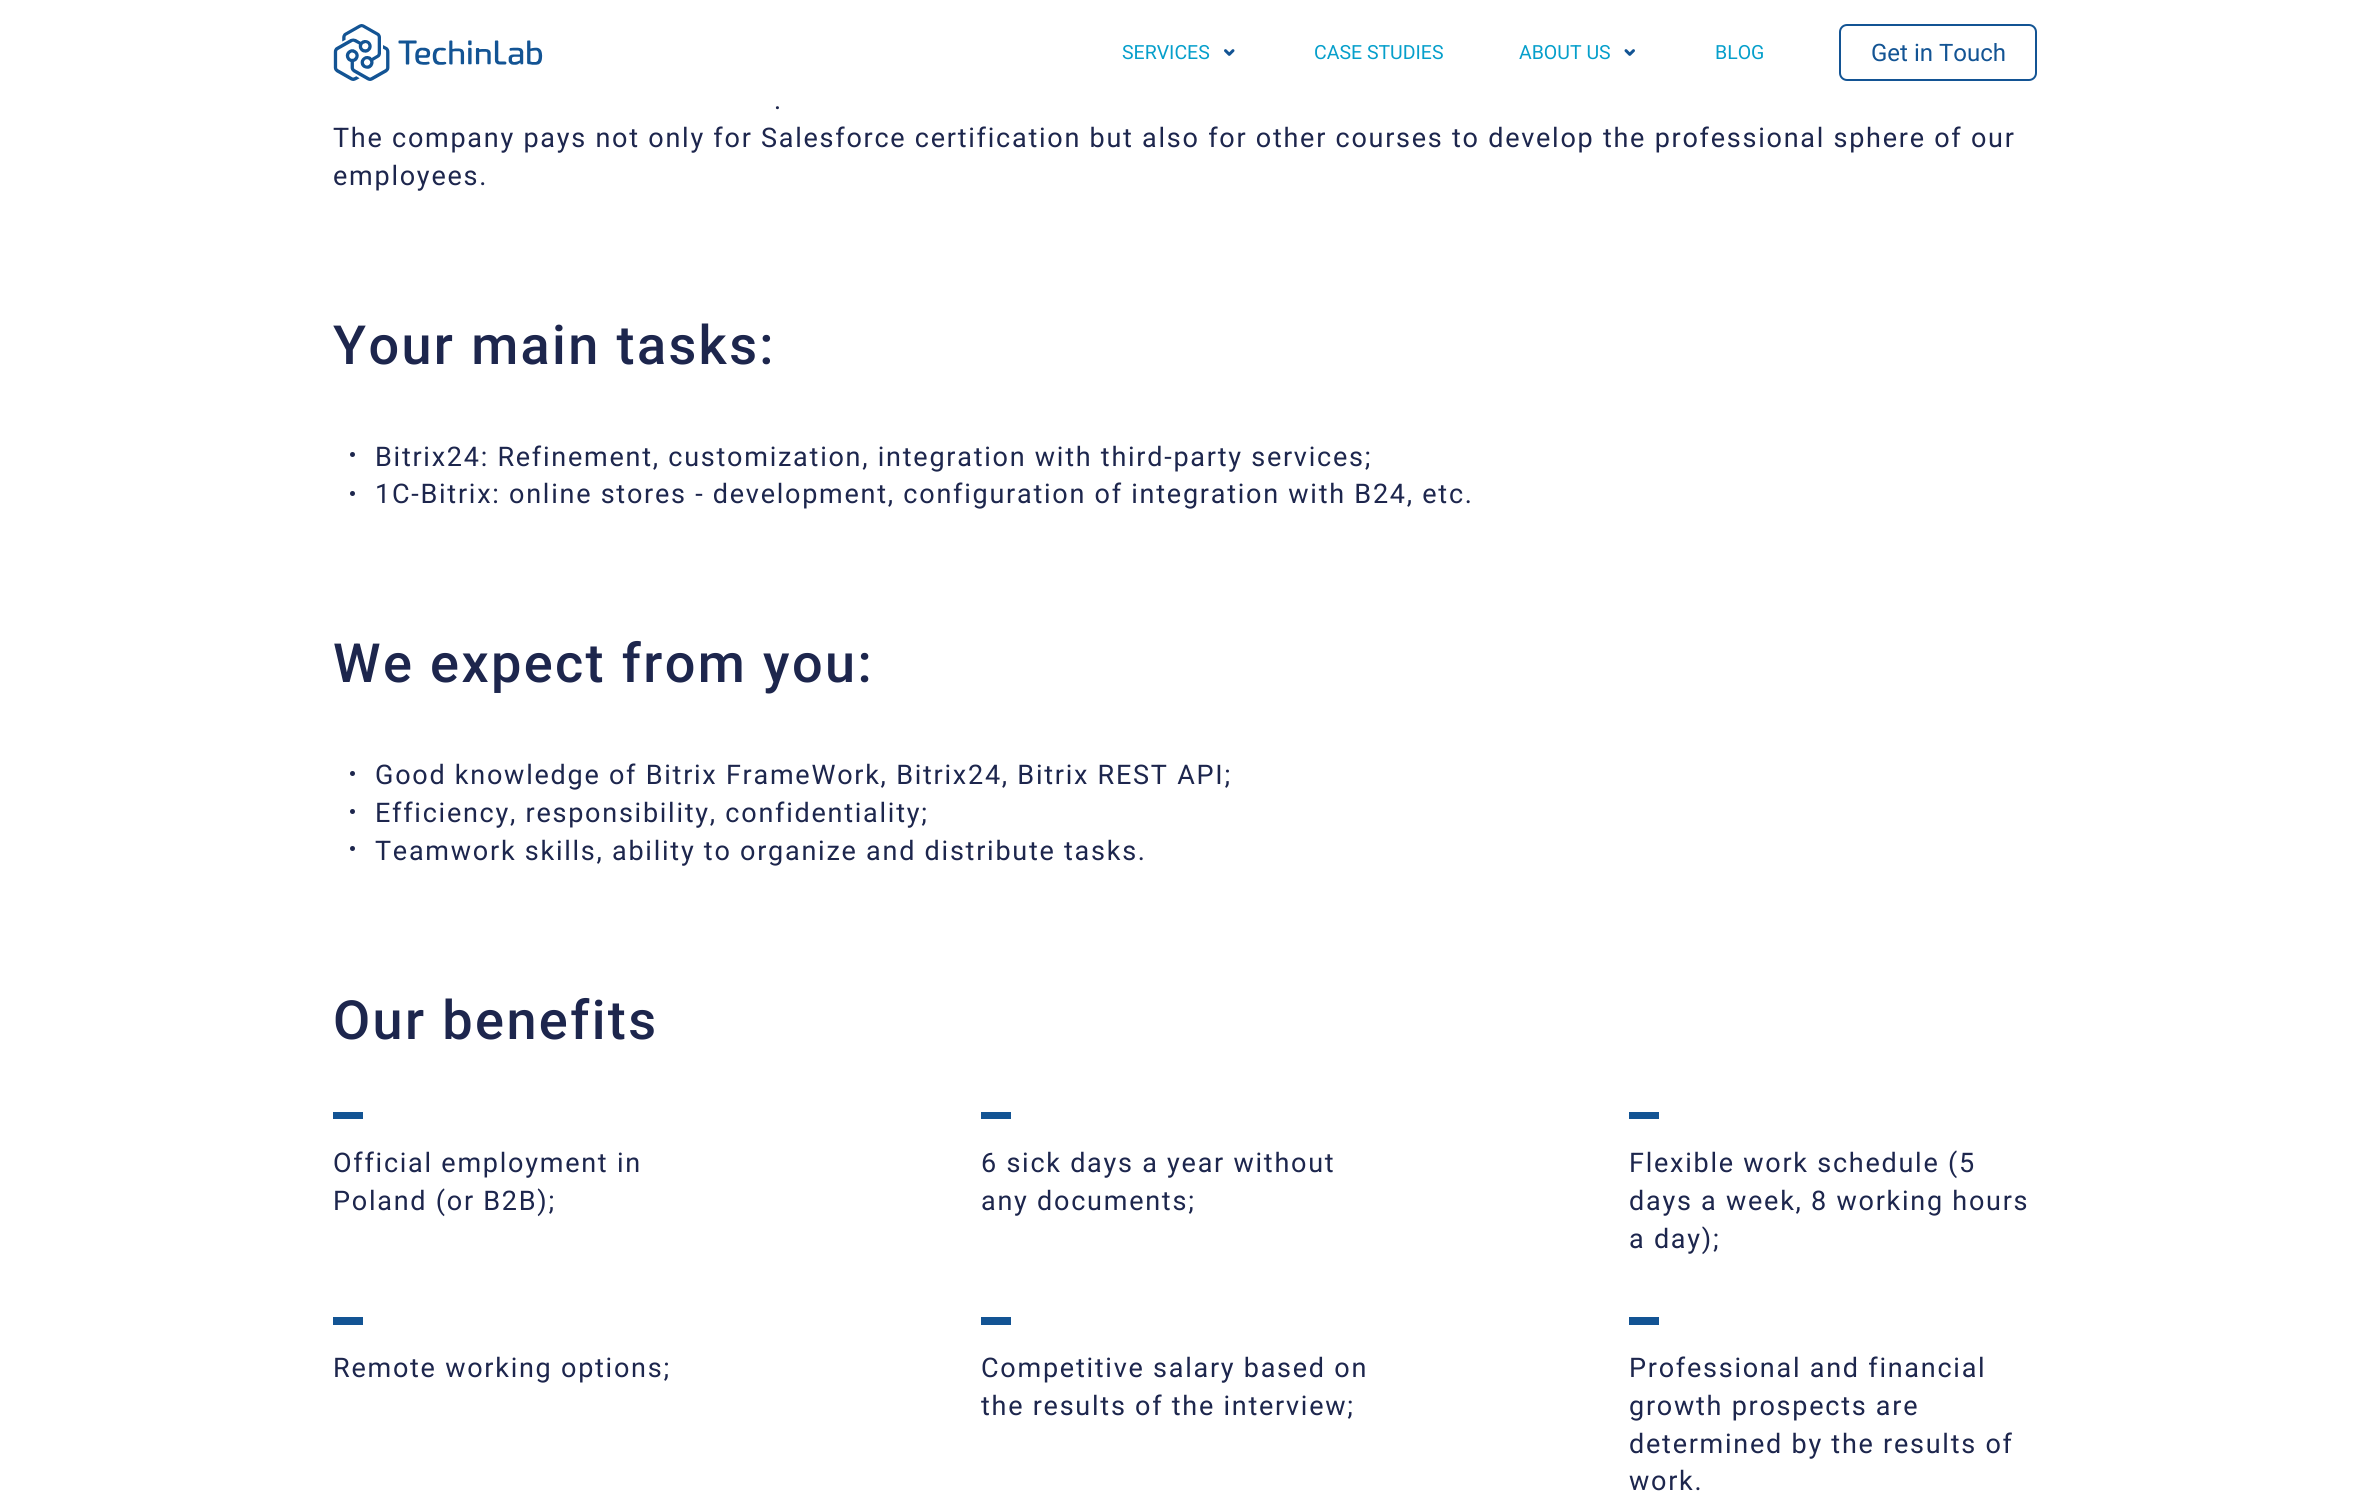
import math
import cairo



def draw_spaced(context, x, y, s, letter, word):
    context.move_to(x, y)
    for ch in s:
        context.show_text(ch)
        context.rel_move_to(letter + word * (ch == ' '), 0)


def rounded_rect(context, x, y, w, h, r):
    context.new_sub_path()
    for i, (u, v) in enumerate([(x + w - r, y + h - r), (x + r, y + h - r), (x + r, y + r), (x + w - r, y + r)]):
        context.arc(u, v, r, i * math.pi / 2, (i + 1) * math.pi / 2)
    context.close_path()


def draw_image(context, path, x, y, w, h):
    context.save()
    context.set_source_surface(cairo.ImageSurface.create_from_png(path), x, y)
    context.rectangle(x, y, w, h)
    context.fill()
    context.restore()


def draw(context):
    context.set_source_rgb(1, 1, 1)
    context.paint()
    draw_image(context, "images/1.png", 333, 24, 210, 57)
    draw_image(context, "images/2.png", 1224, 49, 11, 7)
    draw_image(context, "images/3.png", 1624, 49, 11, 7)
    rounded_rect(context, 1840, 25, 196, 55, 7)
    context.set_source_rgb(19 / 255, 84 / 255, 148 / 255)
    context.stroke()
    context.set_source_rgb(29 / 255, 38 / 255, 77 / 255)
    context.arc(352.5, 454.5, 2.5, 0, 2 * math.pi)
    context.fill()
    context.arc(352.5, 493.5, 2.5, 0, 2 * math.pi)
    context.fill()
    context.arc(352.5, 773.5, 2.5, 0, 2 * math.pi)
    context.fill()
    context.arc(352.5, 811.5, 2.5, 0, 2 * math.pi)
    context.fill()
    context.arc(352.5, 848.5, 2.5, 0, 2 * math.pi)
    context.fill()
    context.set_source_rgb(19 / 255, 84 / 255, 148 / 255)
    context.rectangle(333, 1112, 30, 7)
    context.fill()
    context.rectangle(981, 1112, 30, 7)
    context.fill()
    context.rectangle(1629, 1112, 30, 7)
    context.fill()
    context.rectangle(333, 1317, 30, 8)
    context.fill()
    context.rectangle(981, 1317, 30, 8)
    context.fill()
    context.rectangle(1629, 1317, 30, 8)
    context.fill()
    context.select_font_face("Roboto")
    context.set_font_size(19.5)
    context.set_source_rgb(6 / 255, 159 / 255, 203 / 255)
    context.move_to(1122, 59)
    context.show_text("SERVICES")
    context.move_to(1314, 59)
    context.show_text("CASE STUDIES")
    context.move_to(1519, 59)
    context.show_text("ABOUT US")
    context.move_to(1715, 59)
    context.show_text("BLOG")
    context.set_font_size(24)
    context.set_source_rgb(19 / 255, 84 / 255, 148 / 255)
    context.move_to(1871, 61)
    context.show_text("Get in Touch")
    context.set_font_size(27)
    context.set_source_rgb(29 / 255, 38 / 255, 77 / 255)
    draw_spaced(context, 774, 109, ".", 1.75, 0)
    draw_spaced(context, 333, 147, "The company pays not only for Salesforce certification but also for other courses to develop the professional sphere of our", 1.75, 0)
    draw_spaced(context, 333, 185, "employees.", 1.75, 0)
    context.select_font_face("Roboto Medium")
    context.set_font_size(54)
    draw_spaced(context, 333, 364, "Your main tasks:", 2.4, 0)
    context.select_font_face("Roboto")
    context.set_font_size(27)
    draw_spaced(context, 375, 466, "Bitrix24: Refinement, customization, integration with third-party services;", 1.75, 0)
    draw_spaced(context, 375, 503, "1C-Bitrix: online stores - development, configuration of integration with B24, etc.", 1.75, 0)
    context.select_font_face("Roboto Medium")
    context.set_font_size(54)
    draw_spaced(context, 333, 682, "We expect from you:", 2.4, 0)
    context.select_font_face("Roboto")
    context.set_font_size(27)
    draw_spaced(context, 375, 784, "Good knowledge of Bitrix FrameWork, Bitrix24, Bitrix REST API;", 1.75, 0)
    draw_spaced(context, 375, 822, "Efficiency, responsibility, confidentiality;", 1.75, 0)
    draw_spaced(context, 375, 860, "Teamwork skills, ability to organize and distribute tasks.", 1.75, 0)
    context.select_font_face("Roboto Medium")
    context.set_font_size(54)
    draw_spaced(context, 333, 1039, "Our benefits", 2.4, 0)
    context.select_font_face("Roboto")
    context.set_font_size(27)
    draw_spaced(context, 333, 1172, "Official employment in", 1.75, 0)
    draw_spaced(context, 333, 1210, "Poland (or B2B);", 1.75, 0)
    draw_spaced(context, 981, 1172, "6 sick days a year without", 1.75, 0)
    draw_spaced(context, 981, 1210, "any documents;", 1.75, 0)
    draw_spaced(context, 1629, 1172, "Flexible work schedule (5", 1.75, 0)
    draw_spaced(context, 1629, 1210, "days a week, 8 working hours", 1.75, 0)
    draw_spaced(context, 1629, 1248, "a day);", 1.75, 0)
    draw_spaced(context, 333, 1377, "Remote working options;", 1.75, 0)
    draw_spaced(context, 981, 1377, "Competitive salary based on", 1.75, 0)
    draw_spaced(context, 981, 1415, "the results of the interview;", 1.75, 0)
    draw_spaced(context, 1629, 1377, "Professional and financial", 1.75, 0)
    draw_spaced(context, 1629, 1415, "growth prospects are", 1.75, 0)
    draw_spaced(context, 1629, 1453, "determined by the results of", 1.75, 0)
    draw_spaced(context, 1629, 1490, "work.", 1.75, 0)


surface = cairo.ImageSurface(cairo.Format.RGB24, 2370, 1507)
context = cairo.Context(surface)
options = cairo.FontOptions()
options.set_hint_metrics(cairo.HintMetrics.OFF)
options.set_hint_style(cairo.HintStyle.NONE)
context.set_font_options(options)
context.set_miter_limit(4)
draw(context)
surface.write_to_png("out.png")
